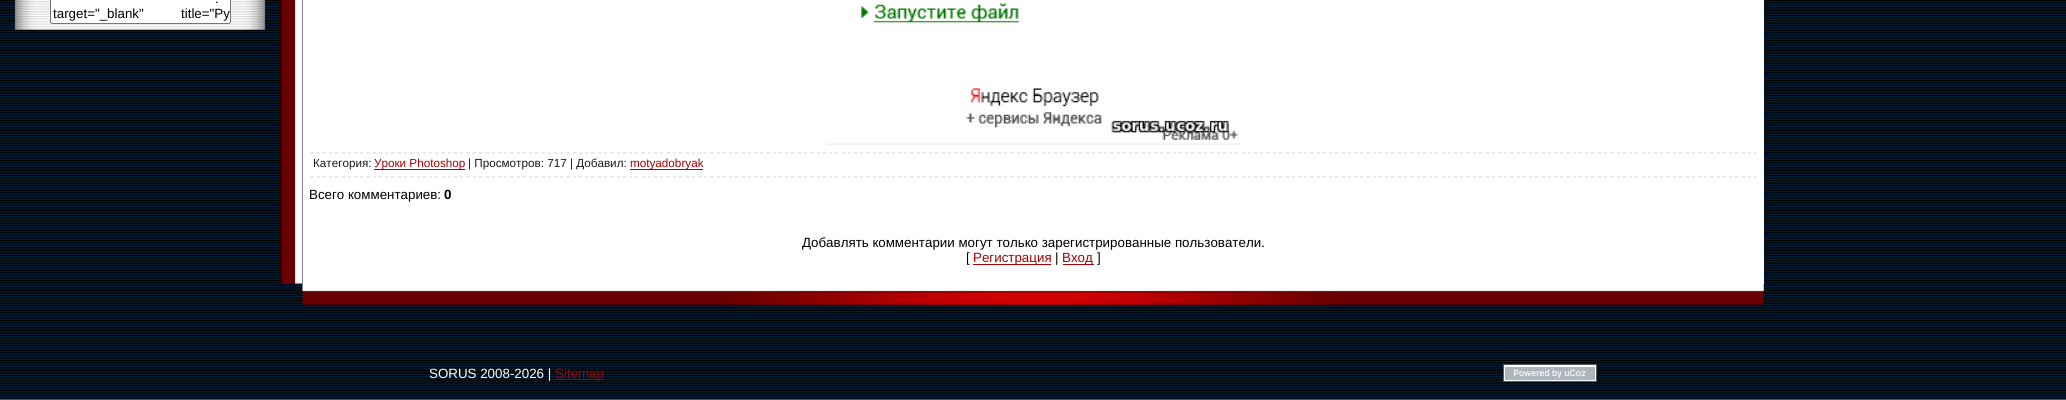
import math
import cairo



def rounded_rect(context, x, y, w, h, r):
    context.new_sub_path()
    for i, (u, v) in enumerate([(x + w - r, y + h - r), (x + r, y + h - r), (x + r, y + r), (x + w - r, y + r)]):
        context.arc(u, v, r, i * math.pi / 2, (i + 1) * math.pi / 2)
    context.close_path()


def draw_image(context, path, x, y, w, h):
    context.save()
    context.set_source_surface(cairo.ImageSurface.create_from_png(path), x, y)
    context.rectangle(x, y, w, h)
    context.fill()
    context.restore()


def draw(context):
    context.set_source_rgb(1, 1, 1)
    context.paint()
    draw_image(context, "images/1.png", 0, 0, 2066, 400)
    draw_image(context, "images/2.png", 14, 0, 252, 30)
    context.set_source_rgb(1, 1, 1)
    rounded_rect(context, 50.5, -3.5, 180, 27, 2)
    context.fill_preserve()
    context.set_source_rgb(118 / 255, 118 / 255, 118 / 255)
    context.set_line_width(1)
    context.stroke()
    draw_image(context, "images/3.png", 280, 0, 23, 284)
    context.set_source_rgb(1, 1, 1)
    context.rectangle(303, 0, 1461, 284)
    context.fill()
    draw_image(context, "images/4.png", 826, 3, 415, 142)
    context.new_path()
    context.move_to(310, 153)
    context.line_to(1756, 153)
    context.set_source_rgb(221 / 255, 221 / 255, 221 / 255)
    context.set_line_width(1.2)
    context.set_dash([3.75, 2.5])
    context.stroke()
    context.new_path()
    context.move_to(310, 177)
    context.line_to(1756, 177)
    context.stroke()
    context.set_source_rgb(167 / 255, 0, 3 / 255)
    context.rectangle(374, 169, 91, 1)
    context.fill()
    context.rectangle(630, 169, 73, 1)
    context.fill()
    context.rectangle(973, 264, 78, 1)
    context.fill()
    context.rectangle(1063, 264, 31, 1)
    context.fill()
    draw_image(context, "images/5.png", 302, 283, 1462, 23)
    draw_image(context, "images/6.png", 728, 292, 612, 14)
    context.rectangle(555, 379, 49, 1)
    context.fill()
    draw_image(context, "images/7.png", 1503, 364, 94, 18)
    context.select_font_face("Liberation Sans")
    context.set_font_size(13.35)
    context.set_source_rgb(0, 0, 0)
    context.move_to(215, 3)
    context.show_text(".")
    context.move_to(53, 18)
    context.show_text("target=\"_blank\"")
    context.move_to(181, 18)
    context.show_text("title=\"Ру")
    context.set_font_size(11.7)
    context.set_source_rgb(26 / 255, 26 / 255, 26 / 255)
    context.move_to(313, 167)
    context.show_text("Категория:")
    context.set_source_rgb(167 / 255, 0, 3 / 255)
    context.move_to(374, 167)
    context.show_text("Уроки Photoshop")
    context.set_source_rgb(26 / 255, 26 / 255, 26 / 255)
    context.move_to(468, 167)
    context.show_text("| Просмотров: 717 | Добавил:")
    context.set_source_rgb(167 / 255, 0, 3 / 255)
    context.move_to(630, 167)
    context.show_text("motyadobryak")
    context.set_font_size(13.35)
    context.set_source_rgb(0, 0, 0)
    context.move_to(309, 199)
    context.show_text("Всего комментариев:")
    context.select_font_face("Liberation Sans", cairo.FontSlant.NORMAL, cairo.FontWeight.BOLD)
    context.move_to(444, 199)
    context.show_text("0")
    context.select_font_face("Liberation Sans")
    context.move_to(802, 247)
    context.show_text("Добавлять комментарии могут только зарегистрированные пользователи.")
    context.move_to(966, 262)
    context.show_text("[")
    context.set_source_rgb(167 / 255, 0, 3 / 255)
    context.move_to(973, 262)
    context.show_text("Регистрация")
    context.set_source_rgb(0, 0, 0)
    context.move_to(1055, 262)
    context.show_text("|")
    context.set_source_rgb(167 / 255, 0, 3 / 255)
    context.move_to(1062, 262)
    context.show_text("Вход")
    context.set_source_rgb(0, 0, 0)
    context.move_to(1097, 262)
    context.show_text("]")
    context.set_source_rgb(1, 1, 1)
    context.move_to(429, 378)
    context.show_text("SORUS 2008-2026 |")
    context.set_source_rgb(167 / 255, 0, 3 / 255)
    context.move_to(555, 378)
    context.show_text("Sitemap")


surface = cairo.ImageSurface(cairo.Format.RGB24, 2066, 400)
context = cairo.Context(surface)
options = cairo.FontOptions()
options.set_hint_metrics(cairo.HintMetrics.OFF)
options.set_hint_style(cairo.HintStyle.NONE)
context.set_font_options(options)
context.set_miter_limit(4)
draw(context)
surface.write_to_png("out.png")
